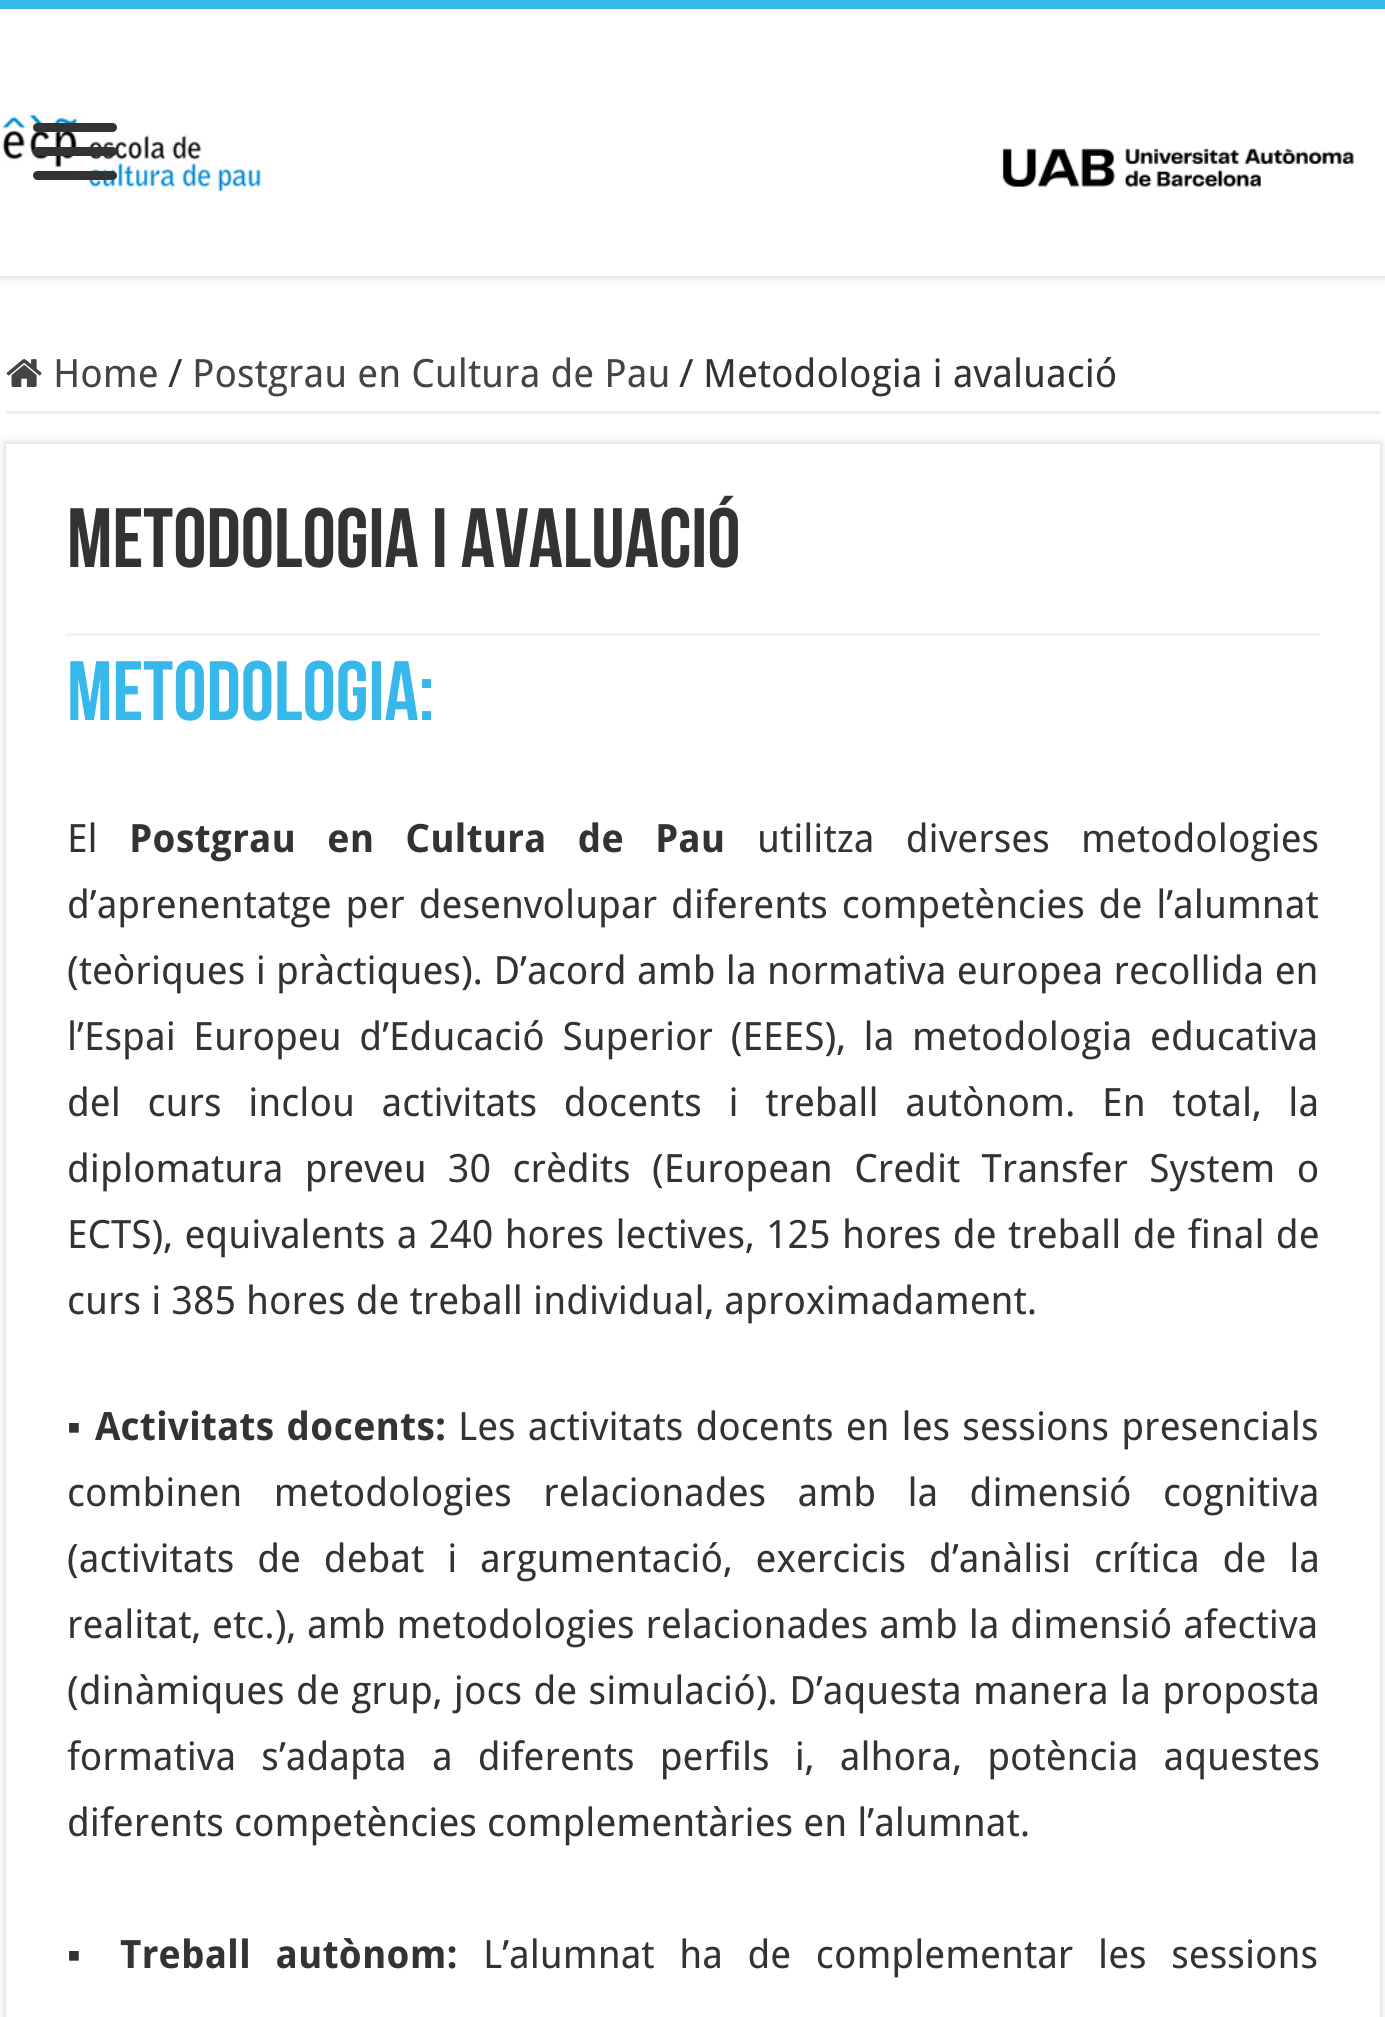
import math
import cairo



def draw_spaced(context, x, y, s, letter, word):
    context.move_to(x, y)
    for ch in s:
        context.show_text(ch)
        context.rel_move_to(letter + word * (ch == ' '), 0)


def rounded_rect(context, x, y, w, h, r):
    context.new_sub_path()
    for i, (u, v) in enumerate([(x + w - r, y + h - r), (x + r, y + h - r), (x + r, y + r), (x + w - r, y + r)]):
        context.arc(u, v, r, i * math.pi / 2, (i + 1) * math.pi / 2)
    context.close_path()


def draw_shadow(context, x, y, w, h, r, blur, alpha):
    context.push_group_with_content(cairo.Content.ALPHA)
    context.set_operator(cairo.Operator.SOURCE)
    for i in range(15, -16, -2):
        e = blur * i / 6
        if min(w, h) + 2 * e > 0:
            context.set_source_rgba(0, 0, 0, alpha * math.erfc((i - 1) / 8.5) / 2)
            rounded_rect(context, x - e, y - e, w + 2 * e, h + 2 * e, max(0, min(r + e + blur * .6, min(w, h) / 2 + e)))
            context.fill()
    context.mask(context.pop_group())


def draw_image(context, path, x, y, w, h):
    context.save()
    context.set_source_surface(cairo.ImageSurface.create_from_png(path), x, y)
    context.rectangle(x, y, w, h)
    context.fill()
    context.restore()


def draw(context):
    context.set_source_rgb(1, 1, 1)
    context.paint()
    context.save()
    context.rectangle(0, 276, 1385, 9)
    context.clip()
    context.set_source_rgb(202 / 255, 202 / 255, 202 / 255)
    draw_shadow(context, 0, 0, 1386, 276, 0, 4.5, 1)
    context.restore()
    context.set_source_rgb(55 / 255, 184 / 255, 235 / 255)
    context.rectangle(0, 0, 1385, 9)
    context.fill()
    draw_image(context, "images/1.png", 0, 114, 1354, 78)
    context.set_source_rgb(51 / 255, 51 / 255, 51 / 255)
    rounded_rect(context, 33, 123, 84, 9, 4.5)
    context.fill()
    rounded_rect(context, 33, 147, 84, 9, 4.5)
    context.fill()
    rounded_rect(context, 33, 171, 84, 9, 4.5)
    context.fill()
    context.set_source_rgb(238 / 255, 238 / 255, 238 / 255)
    context.rectangle(6, 411, 1374, 3)
    context.fill()
    draw_image(context, "images/2.png", 6, 359, 36, 28)
    context.save()
    context.set_fill_rule(cairo.FillRule.EVEN_ODD)
    context.new_path()
    context.move_to(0, 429)
    context.line_to(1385, 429)
    context.line_to(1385, 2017)
    context.line_to(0, 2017)
    context.close_path()
    context.move_to(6, 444)
    context.line_to(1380, 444)
    context.line_to(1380, 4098)
    context.line_to(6, 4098)
    context.close_path()
    context.clip()
    context.set_source_rgb(202 / 255, 202 / 255, 202 / 255)
    draw_shadow(context, 6, 444, 1374, 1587, 0, 4.5, 1)
    context.restore()
    context.set_source_rgb(242 / 255, 242 / 255, 242 / 255)
    context.rectangle(66, 633, 1254, 3)
    context.fill()
    context.select_font_face("Droid Sans")
    context.set_font_size(39)
    context.set_source_rgb(68 / 255, 68 / 255, 68 / 255)
    context.move_to(53, 387)
    context.show_text("Home")
    context.set_source_rgb(51 / 255, 51 / 255, 51 / 255)
    context.move_to(168, 387)
    context.show_text("/")
    context.set_source_rgb(68 / 255, 68 / 255, 68 / 255)
    context.move_to(192, 387)
    context.show_text("Postgrau en Cultura de Pau")
    context.set_source_rgb(51 / 255, 51 / 255, 51 / 255)
    context.move_to(679, 387)
    context.show_text("/")
    context.move_to(703, 387)
    context.show_text("Metodologia i avaluació")
    context.select_font_face("Bebas Neue", cairo.FontSlant.NORMAL, cairo.FontWeight.BOLD)
    context.set_font_size(84)
    context.move_to(67, 567)
    context.show_text("Metodologia i avaluació")
    context.set_source_rgb(55 / 255, 184 / 255, 235 / 255)
    context.move_to(67, 720)
    context.show_text("Metodologia:")
    context.select_font_face("Droid Sans")
    context.set_font_size(39)
    context.set_source_rgb(51 / 255, 51 / 255, 51 / 255)
    context.move_to(67, 852)
    context.show_text("El")
    context.select_font_face("Droid Sans", cairo.FontSlant.NORMAL, cairo.FontWeight.BOLD)
    draw_spaced(context, 129, 852, "Postgrau en Cultura de Pau", 0, 21)
    context.select_font_face("Droid Sans")
    draw_spaced(context, 757, 852, "utilitza diverses metodologies", 0, 21)
    draw_spaced(context, 67, 918, "d’aprenentatge per desenvolupar diferents competències de l’alumnat", 0, 3.75)
    draw_spaced(context, 67, 984, "(teòriques i pràctiques). D’acord amb la normativa europea recollida en", 0, 0.25)
    draw_spaced(context, 67, 1050, "l’Espai Europeu d’Educació Superior (EEES), la metodologia educativa", 0, 7.5)
    draw_spaced(context, 67, 1116, "del curs inclou activitats docents i treball autònom. En total, la", 0, 16.5)
    draw_spaced(context, 67, 1182, "diplomatura preveu 30 crèdits (European Credit Transfer System o", 0, 11.25)
    draw_spaced(context, 67, 1248, "ECTS), equivalents a 240 hores lectives, 125 hores de treball de final de", 0, 1.25)
    context.move_to(67, 1314)
    context.show_text("curs i 385 hores de treball individual, aproximadament.")
    context.select_font_face("Liberation Serif")
    context.move_to(67, 1440)
    context.show_text("▪")
    context.select_font_face("Droid Sans", cairo.FontSlant.NORMAL, cairo.FontWeight.BOLD)
    draw_spaced(context, 95, 1440, "Activitats docents:", 0, 2)
    context.select_font_face("Droid Sans")
    draw_spaced(context, 458, 1440, "Les activitats docents en les sessions presencials", 0, 2)
    draw_spaced(context, 67, 1506, "combinen metodologies relacionades amb la dimensió cognitiva", 0, 21.25)
    draw_spaced(context, 67, 1572, "(activitats de debat i argumentació, exercicis d’anàlisi crítica de la", 0, 12.75)
    draw_spaced(context, 67, 1638, "realitat, etc.), amb metodologies relacionades amb la dimensió afectiva", 0, 0.75)
    draw_spaced(context, 67, 1704, "(dinàmiques de grup, jocs de simulació). D’aquesta manera la proposta", 0, 1.25)
    draw_spaced(context, 67, 1770, "formativa s’adapta a diferents perfils i, alhora, potència aquestes", 0, 15)
    context.move_to(67, 1836)
    context.show_text("diferents competències complementàries en l’alumnat.")
    context.select_font_face("Liberation Serif")
    context.move_to(67, 1968)
    context.show_text("▪")
    context.select_font_face("Droid Sans", cairo.FontSlant.NORMAL, cairo.FontWeight.BOLD)
    draw_spaced(context, 120, 1968, "Treball autònom:", 0, 14.5)
    context.select_font_face("Droid Sans")
    draw_spaced(context, 483, 1968, "L’alumnat ha de complementar les sessions", 0, 14.5)


surface = cairo.ImageSurface(cairo.Format.RGB24, 1385, 2017)
context = cairo.Context(surface)
options = cairo.FontOptions()
options.set_hint_metrics(cairo.HintMetrics.OFF)
options.set_hint_style(cairo.HintStyle.NONE)
context.set_font_options(options)
context.set_miter_limit(4)
draw(context)
surface.write_to_png("out.png")
